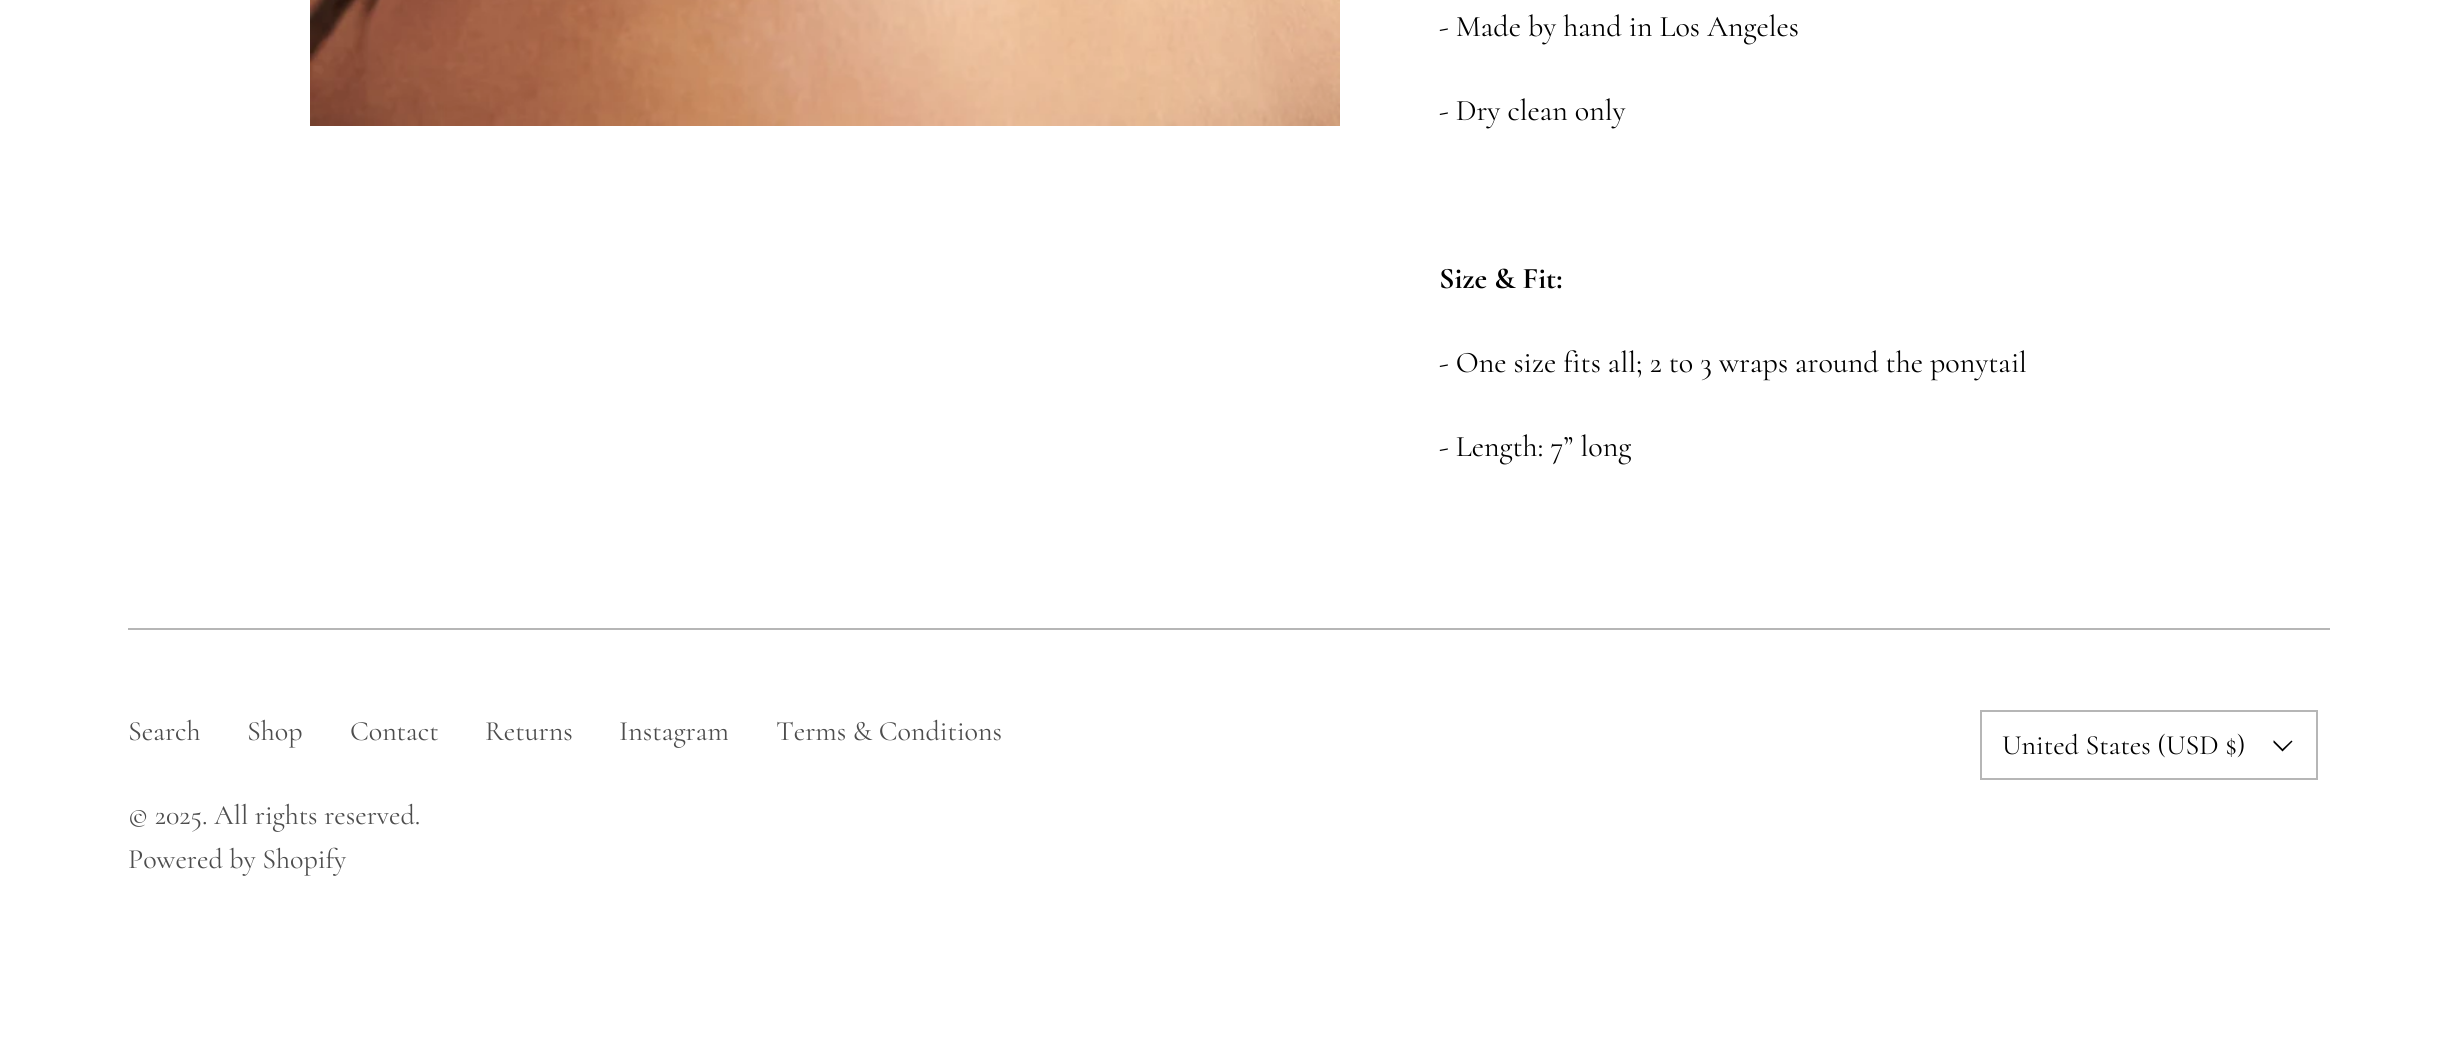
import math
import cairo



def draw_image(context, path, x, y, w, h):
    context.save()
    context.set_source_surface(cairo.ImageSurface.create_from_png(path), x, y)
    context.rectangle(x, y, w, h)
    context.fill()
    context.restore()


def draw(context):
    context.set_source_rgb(1, 1, 1)
    context.paint()
    draw_image(context, "images/1.png", 310, 0, 1030, 126)
    context.set_source_rgb(182 / 255, 182 / 255, 182 / 255)
    context.rectangle(128, 628, 2202, 2)
    context.fill()
    context.rectangle(1981, 711, 336, 68)
    context.stroke()
    context.set_source_rgb(0, 0, 0)
    context.new_path()
    context.move_to(2282.5, 749)
    context.line_to(2291.5, 740.5)
    context.line_to(2292.5, 741.5)
    context.line_to(2282.5, 751.5)
    context.line_to(2273.5, 742.5)
    context.line_to(2273.5, 740.5)
    context.line_to(2274, 740.5)
    context.close_path()
    context.fill()
    context.select_font_face("Cormorant Light")
    context.set_font_size(30)
    context.move_to(1439, 36)
    context.show_text("- Made by hand in Los Angeles")
    context.move_to(1439, 120)
    context.show_text("- Dry clean only")
    context.select_font_face("Cormorant", cairo.FontSlant.NORMAL, cairo.FontWeight.BOLD)
    context.move_to(1439, 288)
    context.show_text("Size & Fit:")
    context.select_font_face("Cormorant Light")
    context.move_to(1439, 372)
    context.show_text("- One size fits all; 2 to 3 wraps around the ponytail")
    context.move_to(1439, 456)
    context.show_text("- Length: 7” long")
    context.set_font_size(28)
    context.set_source_rgb(77 / 255, 77 / 255, 77 / 255)
    context.move_to(128, 740)
    context.show_text("Search")
    context.move_to(247, 740)
    context.show_text("Shop")
    context.move_to(350, 740)
    context.show_text("Contact")
    context.move_to(485, 740)
    context.show_text("Returns")
    context.move_to(619, 740)
    context.show_text("Instagram")
    context.move_to(776, 740)
    context.show_text("Terms & Conditions")
    context.move_to(128, 824)
    context.show_text("© 2025. All rights reserved.")
    context.move_to(128, 868)
    context.show_text("Powered by Shopify")
    context.set_source_rgb(0, 0, 0)
    context.move_to(2002, 754)
    context.show_text("United States (USD $)")


surface = cairo.ImageSurface(cairo.Format.RGB24, 2457, 1061)
context = cairo.Context(surface)
options = cairo.FontOptions()
options.set_hint_metrics(cairo.HintMetrics.OFF)
options.set_hint_style(cairo.HintStyle.NONE)
context.set_font_options(options)
context.set_miter_limit(4)
draw(context)
surface.write_to_png("out.png")
